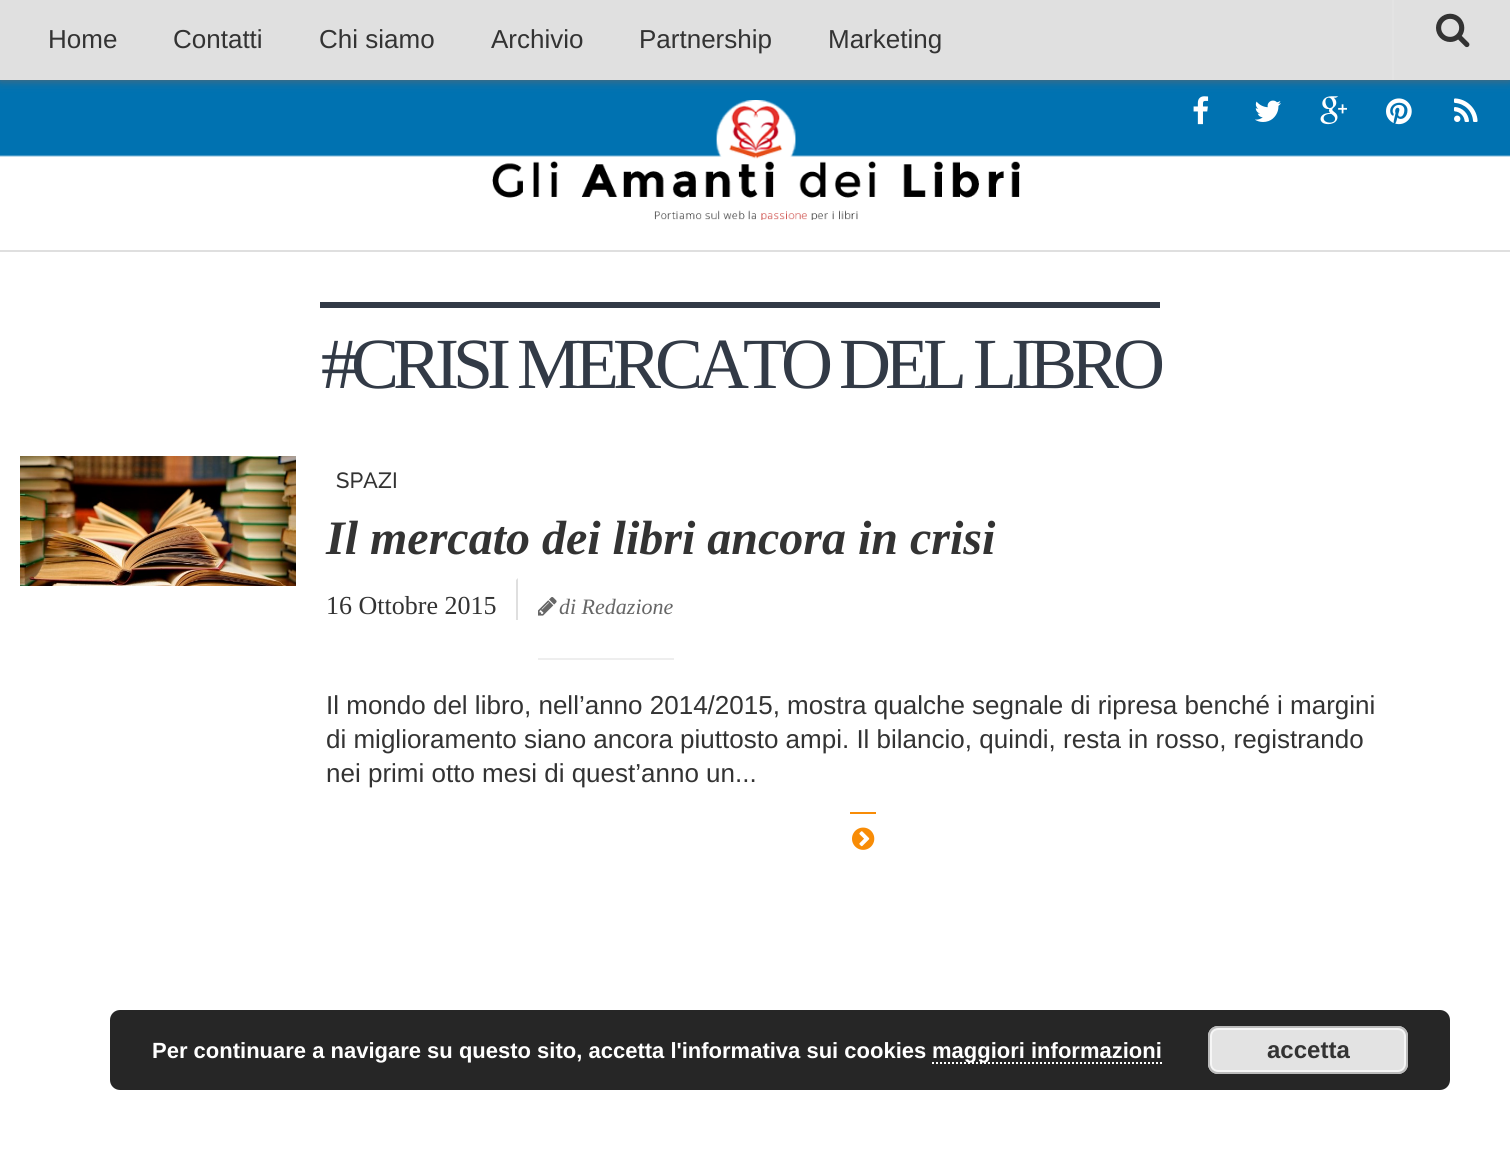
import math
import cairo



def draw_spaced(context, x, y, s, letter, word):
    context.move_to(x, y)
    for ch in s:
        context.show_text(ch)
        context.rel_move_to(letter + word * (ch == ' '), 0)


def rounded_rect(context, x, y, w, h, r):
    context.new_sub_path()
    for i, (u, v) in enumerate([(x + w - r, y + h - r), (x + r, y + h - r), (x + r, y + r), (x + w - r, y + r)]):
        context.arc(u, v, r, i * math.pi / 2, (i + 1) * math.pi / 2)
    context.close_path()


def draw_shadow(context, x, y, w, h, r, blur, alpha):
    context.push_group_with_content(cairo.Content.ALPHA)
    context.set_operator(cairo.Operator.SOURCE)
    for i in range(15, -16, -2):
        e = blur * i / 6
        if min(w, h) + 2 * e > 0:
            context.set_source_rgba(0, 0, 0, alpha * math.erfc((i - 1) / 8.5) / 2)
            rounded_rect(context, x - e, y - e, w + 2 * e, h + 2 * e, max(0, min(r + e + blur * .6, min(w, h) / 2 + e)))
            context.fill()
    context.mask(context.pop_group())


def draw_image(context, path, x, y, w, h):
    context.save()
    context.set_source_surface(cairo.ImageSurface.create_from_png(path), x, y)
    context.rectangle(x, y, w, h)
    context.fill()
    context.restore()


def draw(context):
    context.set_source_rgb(1, 1, 1)
    context.paint()
    draw_image(context, "images/1.png", 0, 80, 1510, 77)
    context.set_source_rgb(102 / 255, 102 / 255, 102 / 255)
    draw_shadow(context, 0, 0, 1510, 80, 0, 5, 1)
    context.set_source_rgb(224 / 255, 224 / 255, 224 / 255)
    context.rectangle(0, 0, 1510, 80)
    context.fill()
    context.set_source_rgb(227 / 255, 227 / 255, 227 / 255)
    context.rectangle(1392, 0, 2, 80)
    context.fill()
    draw_image(context, "images/2.png", 1436, 13, 34, 35)
    draw_image(context, "images/3.png", 492, 100, 528, 120)
    draw_image(context, "images/4.png", 1193, 96, 16, 29)
    draw_image(context, "images/5.png", 1255, 100, 26, 22)
    draw_image(context, "images/6.png", 1320, 96, 27, 29)
    draw_image(context, "images/7.png", 1386, 98, 26, 27)
    draw_image(context, "images/8.png", 1454, 98, 24, 24)
    context.set_source_rgb(223 / 255, 223 / 255, 223 / 255)
    context.rectangle(0, 250, 1510, 2)
    context.fill()
    context.set_source_rgb(50 / 255, 58 / 255, 70 / 255)
    context.rectangle(320, 302, 840, 6)
    context.fill()
    draw_image(context, "images/9.png", 20, 456, 276, 130)
    context.set_source_rgb(223 / 255, 223 / 255, 223 / 255)
    context.new_path()
    context.move_to(518, 578)
    context.line_to(518, 620)
    context.line_to(516, 620)
    context.line_to(516, 580)
    context.close_path()
    context.fill()
    context.set_source_rgb(238 / 255, 238 / 255, 238 / 255)
    context.rectangle(538, 658, 136, 2)
    context.fill()
    draw_image(context, "images/10.png", 538, 597, 19, 19)
    context.set_source_rgb(248 / 255, 140 / 255, 6 / 255)
    context.rectangle(850, 812, 26, 2)
    context.fill()
    draw_image(context, "images/11.png", 852, 827, 23, 23)
    context.set_source_rgb(38 / 255, 38 / 255, 38 / 255)
    rounded_rect(context, 110, 1010, 1340, 80, 10)
    context.fill()
    context.new_path()
    context.move_to(932, 1063)
    context.line_to(1162, 1063)
    context.set_source_rgb(1, 1, 1)
    context.set_dash([2, 2])
    context.stroke()
    context.set_source_rgb(227 / 255, 227 / 255, 227 / 255)
    rounded_rect(context, 1208, 1026, 200, 48, 10)
    context.fill()
    rounded_rect(context, 1211, 1029, 194, 42, 7)
    context.set_source_rgb(246 / 255, 246 / 255, 246 / 255)
    context.set_dash([])
    context.stroke()
    rounded_rect(context, 1209, 1027, 198, 46, 9)
    context.set_source_rgb(187 / 255, 187 / 255, 187 / 255)
    context.stroke()
    context.select_font_face("Liberation Sans")
    context.set_font_size(26)
    context.set_source_rgb(51 / 255, 51 / 255, 51 / 255)
    context.move_to(48, 48)
    context.show_text("Home")
    context.move_to(173, 48)
    context.show_text("Contatti")
    context.move_to(319, 48)
    context.show_text("Chi siamo")
    context.move_to(491, 48)
    context.show_text("Archivio")
    context.move_to(639, 48)
    context.show_text("Partnership")
    context.move_to(828, 48)
    context.show_text("Marketing")
    context.select_font_face("Liberation Serif")
    context.set_font_size(72)
    context.set_source_rgb(50 / 255, 58 / 255, 70 / 255)
    draw_spaced(context, 321, 388, "#CRISI MERCATO DEL LIBRO", -6, 0)
    context.select_font_face("Raleway Medium")
    context.set_font_size(22)
    context.set_source_rgb(51 / 255, 51 / 255, 51 / 255)
    context.move_to(336, 488)
    context.show_text("SPAZI")
    context.select_font_face("Liberation Serif", cairo.FontSlant.ITALIC, cairo.FontWeight.BOLD)
    context.set_font_size(48)
    context.move_to(326, 554)
    context.show_text("Il mercato dei libri ancora in crisi")
    context.select_font_face("Liberation Serif")
    context.set_font_size(26)
    context.move_to(326, 614)
    context.show_text("16 Ottobre 2015")
    context.select_font_face("Liberation Serif", cairo.FontSlant.ITALIC)
    context.set_font_size(22)
    context.set_source_rgb(102 / 255, 102 / 255, 102 / 255)
    context.move_to(559, 614)
    context.show_text("di Redazione")
    context.select_font_face("Liberation Sans")
    context.set_font_size(26)
    context.set_source_rgb(51 / 255, 51 / 255, 51 / 255)
    context.move_to(326, 714)
    context.show_text("Il mondo del libro, nell’anno 2014/2015, mostra qualche segnale di ripresa benché i margini")
    context.move_to(326, 748)
    context.show_text("di miglioramento siano ancora piuttosto ampi. Il bilancio, quindi, resta in rosso, registrando")
    context.move_to(326, 782)
    context.show_text("nei primi otto mesi di quest’anno un...")
    context.select_font_face("Liberation Sans", cairo.FontSlant.NORMAL, cairo.FontWeight.BOLD)
    context.set_font_size(22)
    context.set_source_rgb(1, 1, 1)
    context.move_to(152, 1058)
    context.show_text("Per continuare a navigare su questo sito, accetta l'informativa sui cookies")
    context.move_to(932, 1058)
    context.show_text("maggiori informazioni")
    context.set_font_size(24)
    context.set_source_rgb(51 / 255, 51 / 255, 51 / 255)
    context.move_to(1267, 1058)
    context.show_text("accetta")


surface = cairo.ImageSurface(cairo.Format.RGB24, 1510, 1149)
context = cairo.Context(surface)
options = cairo.FontOptions()
options.set_hint_metrics(cairo.HintMetrics.OFF)
options.set_hint_style(cairo.HintStyle.NONE)
context.set_font_options(options)
context.set_miter_limit(4)
draw(context)
surface.write_to_png("out.png")
